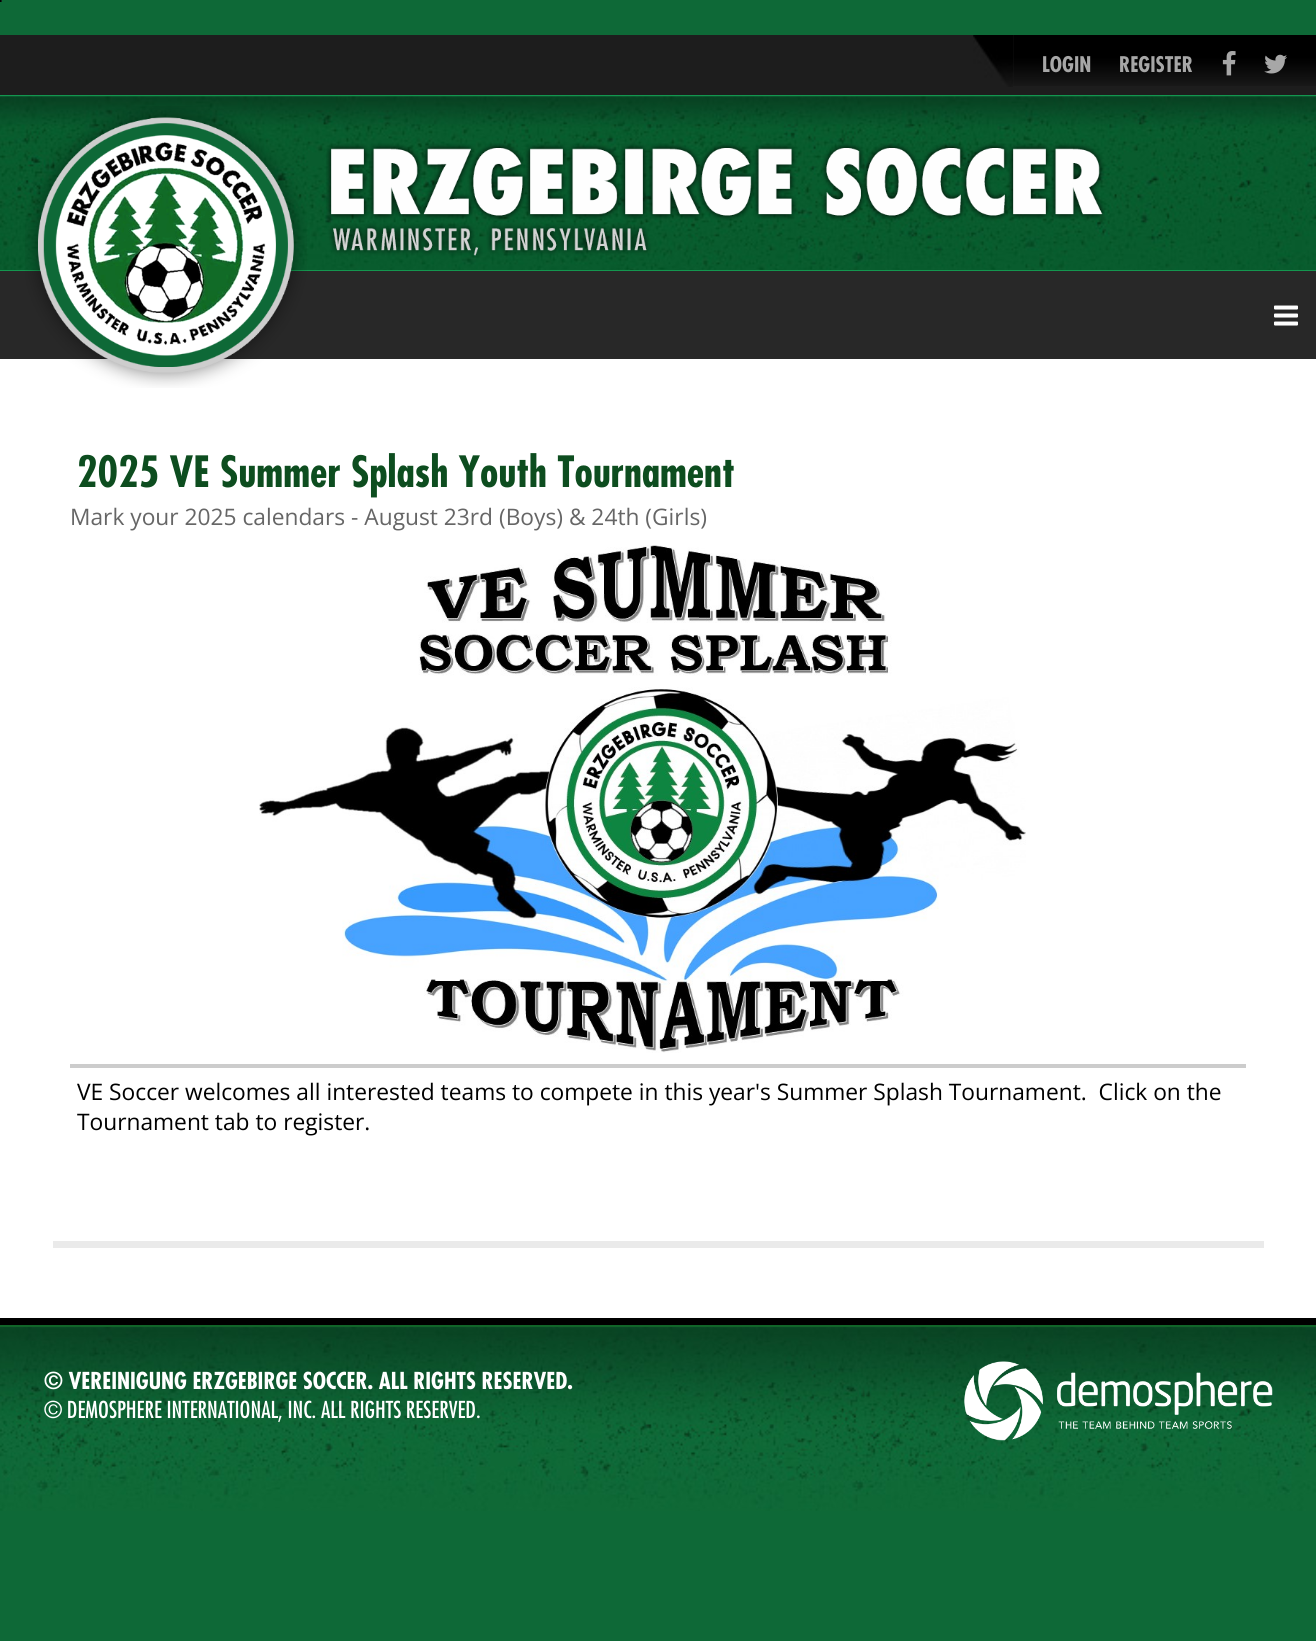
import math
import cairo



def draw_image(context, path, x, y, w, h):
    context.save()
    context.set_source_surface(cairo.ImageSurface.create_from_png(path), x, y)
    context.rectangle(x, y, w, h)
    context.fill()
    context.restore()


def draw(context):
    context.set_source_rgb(14 / 255, 105 / 255, 55 / 255)
    context.paint()
    draw_image(context, "images/1.png", 0, 0, 2, 2)
    context.set_source_rgb(29 / 255, 29 / 255, 29 / 255)
    context.rectangle(0, 35, 1316, 60)
    context.fill()
    context.set_source_rgb(20 / 255, 150 / 255, 79 / 255)
    context.rectangle(0, 95, 1316, 2)
    context.fill()
    draw_image(context, "images/2.png", 1013, 35, 303, 51)
    draw_image(context, "images/3.png", 973, 35, 40, 52)
    draw_image(context, "images/4.png", 1222, 51, 14, 25)
    draw_image(context, "images/5.png", 1264, 54, 23, 20)
    draw_image(context, "images/6.png", 0, 96, 1316, 174)
    context.rectangle(0, 270, 1316, 1)
    context.fill()
    context.set_source_rgb(40 / 255, 40 / 255, 40 / 255)
    context.rectangle(0, 271, 1316, 88)
    context.fill()
    context.set_source_rgb(1, 1, 1)
    context.rectangle(0, 359, 1316, 959)
    context.fill()
    draw_image(context, "images/7.png", 25, 106, 282, 282)
    draw_image(context, "images/8.png", 326, 143, 779, 115)
    draw_image(context, "images/9.png", 1274, 305, 24, 21)
    context.set_source_rgb(0, 0, 0)
    context.rectangle(0, 1318, 1316, 7)
    context.fill()
    draw_image(context, "images/10.png", 259, 545, 767, 508)
    context.set_source_rgb(204 / 255, 204 / 255, 204 / 255)
    context.rectangle(70, 1064, 1176, 4)
    context.fill()
    context.set_source_rgb(234 / 255, 234 / 255, 234 / 255)
    context.rectangle(53, 1241, 1211, 7)
    context.fill()
    draw_image(context, "images/11.png", 0, 1327, 1316, 184)
    context.set_source_rgb(17 / 255, 101 / 255, 41 / 255)
    context.rectangle(0, 1325, 1316, 2)
    context.fill()
    draw_image(context, "images/12.png", 964, 1361, 309, 80)
    context.select_font_face("Futura", cairo.FontSlant.NORMAL, cairo.FontWeight.BOLD)
    context.set_font_size(21)
    context.set_source_rgb(167 / 255, 167 / 255, 167 / 255)
    context.move_to(1042, 72)
    context.show_text("LOGIN")
    context.move_to(1119, 72)
    context.show_text("REGISTER")
    context.set_font_size(42)
    context.set_source_rgb(13 / 255, 77 / 255, 31 / 255)
    context.move_to(77, 487)
    context.show_text("2025 VE Summer Splash Youth Tournament")
    context.select_font_face("Open Sans")
    context.set_font_size(22.75)
    context.set_source_rgb(102 / 255, 102 / 255, 102 / 255)
    context.move_to(70, 525)
    context.show_text("Mark your 2025 calendars - August 23rd (Boys) & 24th (Girls)")
    context.set_source_rgb(0, 0, 0)
    context.move_to(77, 1100)
    context.show_text("VE Soccer welcomes all interested teams to compete in this year's Summer Splash Tournament.  Click on the")
    context.move_to(77, 1130)
    context.show_text("Tournament tab to register.")
    context.select_font_face("Futura", cairo.FontSlant.NORMAL, cairo.FontWeight.BOLD)
    context.set_source_rgb(1, 1, 1)
    context.move_to(44, 1389)
    context.show_text("© VEREINIGUNG ERZGEBIRGE SOCCER. ALL RIGHTS RESERVED.")
    context.select_font_face("Futura Medium")
    context.move_to(44, 1418)
    context.show_text("© DEMOSPHERE INTERNATIONAL, INC. ALL RIGHTS RESERVED.")


surface = cairo.ImageSurface(cairo.Format.RGB24, 1316, 1641)
context = cairo.Context(surface)
options = cairo.FontOptions()
options.set_hint_metrics(cairo.HintMetrics.OFF)
options.set_hint_style(cairo.HintStyle.NONE)
context.set_font_options(options)
context.set_miter_limit(4)
draw(context)
surface.write_to_png("out.png")
